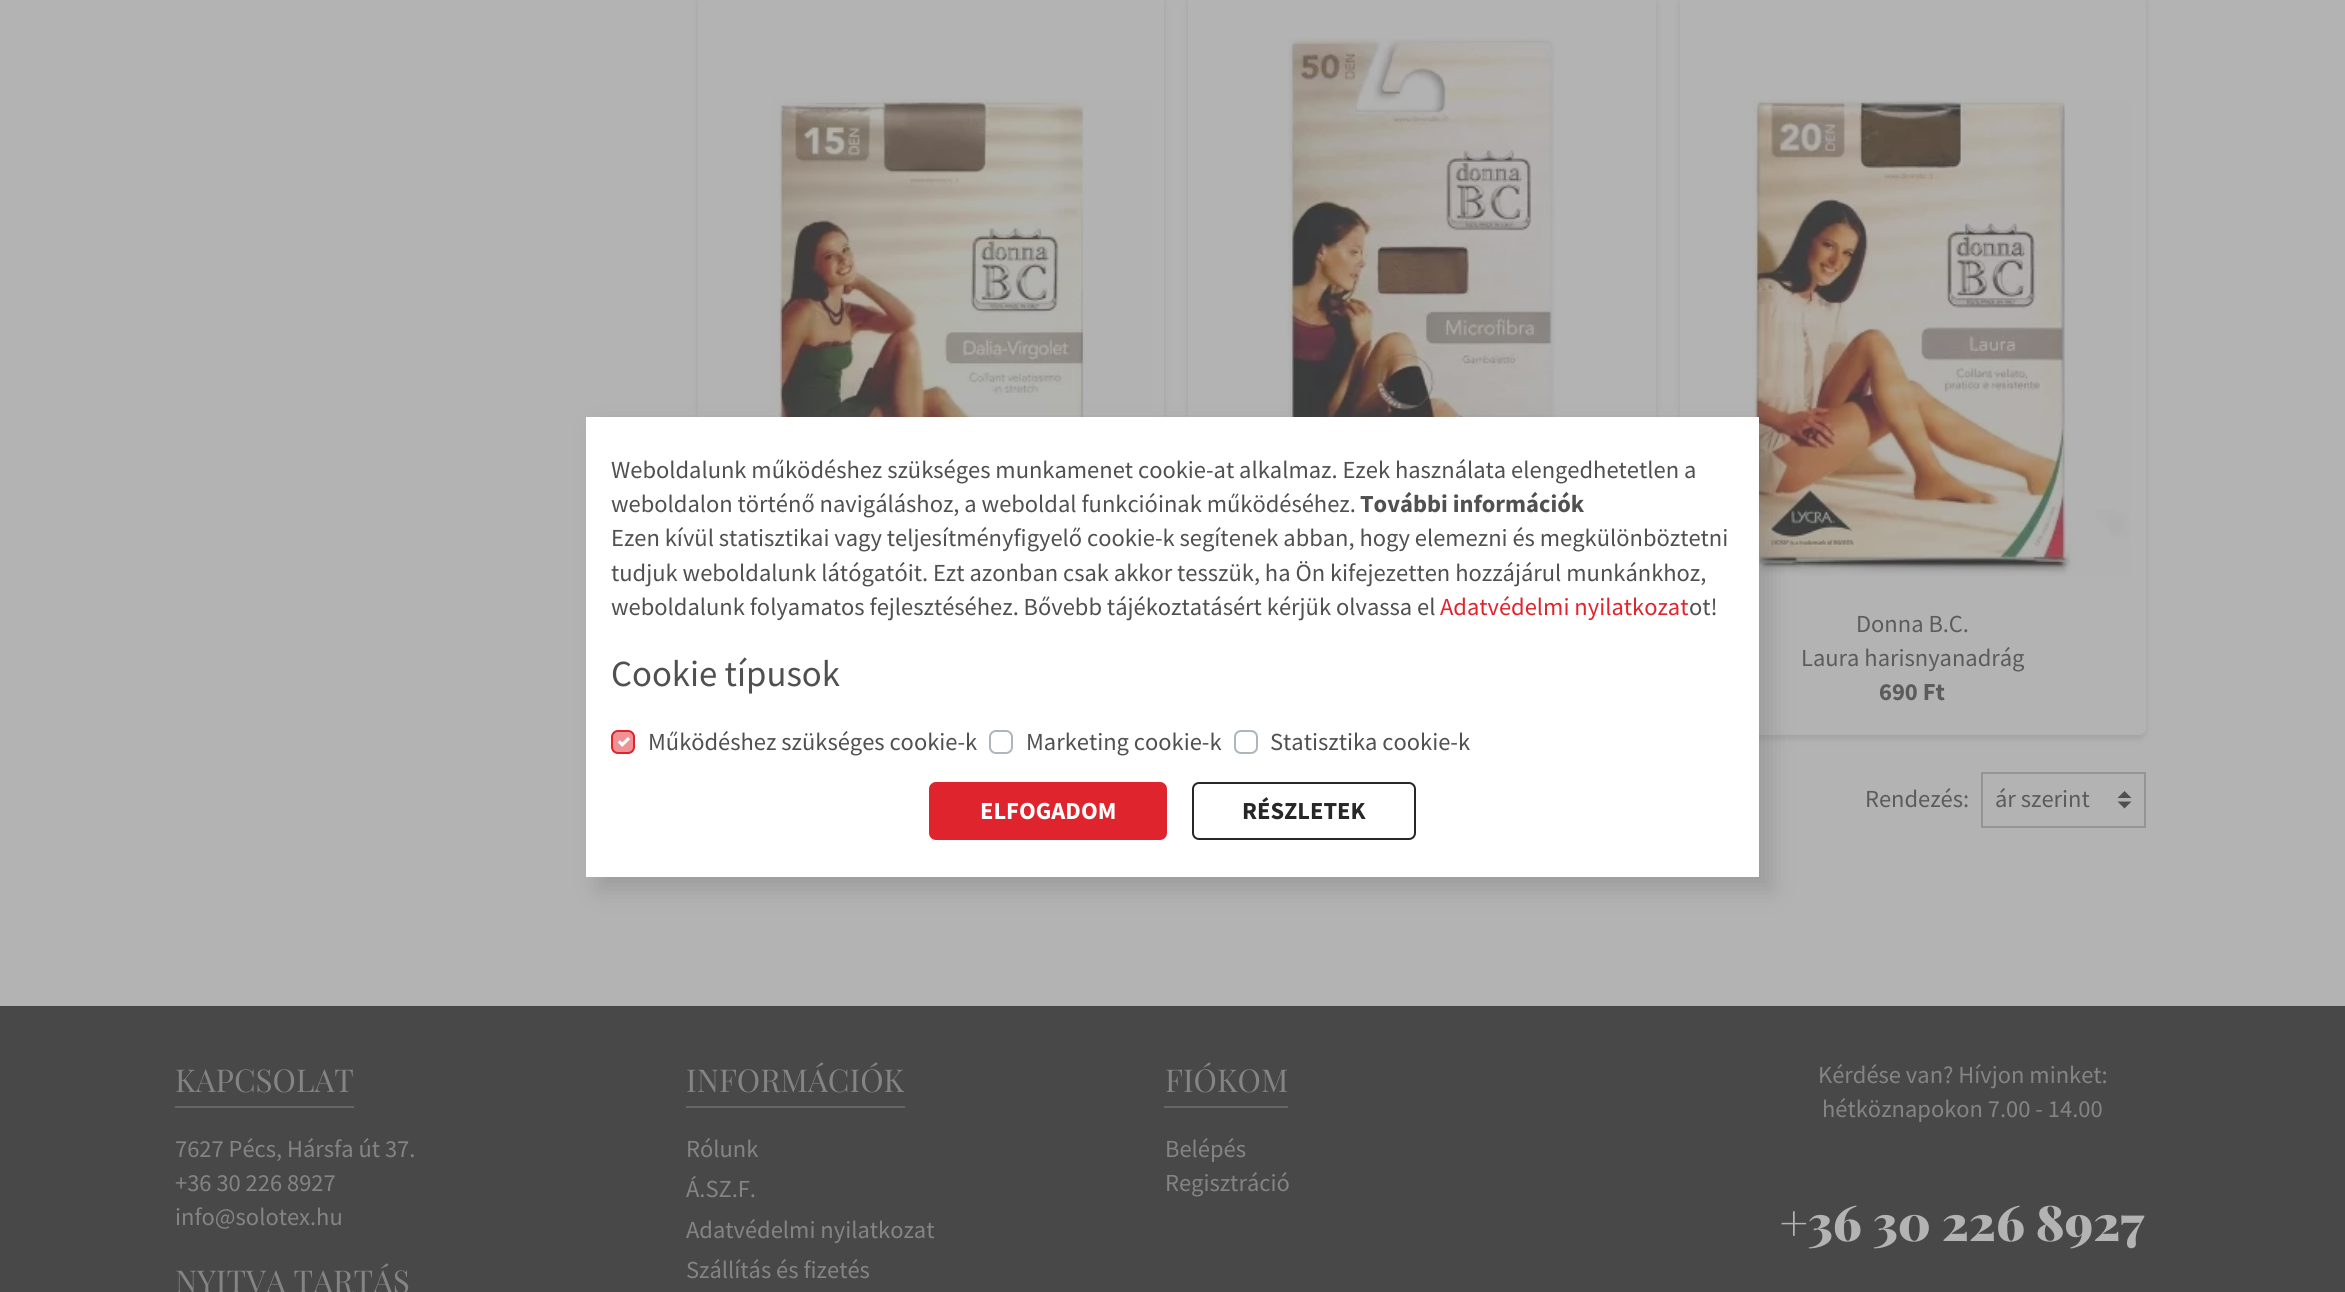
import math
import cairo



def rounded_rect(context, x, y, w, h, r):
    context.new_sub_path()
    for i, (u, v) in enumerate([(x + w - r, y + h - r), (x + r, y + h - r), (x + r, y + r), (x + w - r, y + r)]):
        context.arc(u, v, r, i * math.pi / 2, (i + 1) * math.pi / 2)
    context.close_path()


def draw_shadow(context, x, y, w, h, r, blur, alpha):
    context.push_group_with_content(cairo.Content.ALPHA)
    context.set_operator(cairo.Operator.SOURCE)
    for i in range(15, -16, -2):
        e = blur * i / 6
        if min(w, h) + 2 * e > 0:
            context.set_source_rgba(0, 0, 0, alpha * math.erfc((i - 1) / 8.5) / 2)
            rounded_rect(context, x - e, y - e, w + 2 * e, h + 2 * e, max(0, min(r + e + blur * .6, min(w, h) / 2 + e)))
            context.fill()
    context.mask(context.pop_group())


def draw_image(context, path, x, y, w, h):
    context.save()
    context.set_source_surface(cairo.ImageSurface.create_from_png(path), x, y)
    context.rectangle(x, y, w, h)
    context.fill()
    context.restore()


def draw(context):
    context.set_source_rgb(179 / 255, 179 / 255, 179 / 255)
    context.paint()
    context.save()
    context.set_fill_rule(cairo.FillRule.EVEN_ODD)
    context.new_path()
    context.move_to(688, 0)
    context.line_to(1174, 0)
    context.line_to(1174, 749)
    context.line_to(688, 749)
    context.close_path()
    context.move_to(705, -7)
    context.line_to(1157, -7)
    context.curve_to(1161, -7, 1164, -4, 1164, 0)
    context.line_to(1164, 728)
    context.curve_to(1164, 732, 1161, 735, 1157, 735)
    context.line_to(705, 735)
    context.curve_to(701, 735, 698, 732, 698, 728)
    context.line_to(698, 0)
    context.curve_to(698, -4, 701, -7, 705, -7)
    context.close_path()
    context.clip()
    context.set_source_rgb(91 / 255, 91 / 255, 91 / 255)
    draw_shadow(context, 698, -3, 466, 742, 7, 3, 0.18)
    context.restore()
    draw_image(context, "images/2.png", 772, 98, 380, 319)
    context.save()
    context.set_fill_rule(cairo.FillRule.EVEN_ODD)
    context.new_path()
    context.move_to(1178, 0)
    context.line_to(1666, 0)
    context.line_to(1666, 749)
    context.line_to(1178, 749)
    context.close_path()
    context.move_to(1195, -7)
    context.line_to(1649, -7)
    context.curve_to(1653, -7, 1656, -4, 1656, 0)
    context.line_to(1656, 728)
    context.curve_to(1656, 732, 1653, 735, 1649, 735)
    context.line_to(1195, 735)
    context.curve_to(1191, 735, 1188, 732, 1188, 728)
    context.line_to(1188, 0)
    context.curve_to(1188, -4, 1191, -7, 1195, -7)
    context.close_path()
    context.clip()
    context.set_source_rgb(91 / 255, 91 / 255, 91 / 255)
    draw_shadow(context, 1188, -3, 468, 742, 7, 3, 0.18)
    context.restore()
    draw_image(context, "images/3.png", 1287, 38, 269, 379)
    context.save()
    context.set_fill_rule(cairo.FillRule.EVEN_ODD)
    context.new_path()
    context.move_to(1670, 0)
    context.line_to(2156, 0)
    context.line_to(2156, 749)
    context.line_to(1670, 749)
    context.close_path()
    context.move_to(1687, -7)
    context.line_to(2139, -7)
    context.curve_to(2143, -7, 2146, -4, 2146, 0)
    context.line_to(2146, 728)
    context.curve_to(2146, 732, 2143, 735, 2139, 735)
    context.line_to(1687, 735)
    context.curve_to(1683, 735, 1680, 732, 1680, 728)
    context.line_to(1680, 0)
    context.curve_to(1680, -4, 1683, -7, 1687, -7)
    context.close_path()
    context.clip()
    context.set_source_rgb(91 / 255, 91 / 255, 91 / 255)
    draw_shadow(context, 1680, -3, 466, 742, 7, 3, 0.18)
    context.restore()
    draw_image(context, "images/4.png", 1752, 99, 378, 477)
    context.set_source_rgb(80 / 255, 80 / 255, 80 / 255)
    draw_shadow(context, 599, 429, 1172, 460, 0, 12, 0.25)
    context.set_source_rgb(1, 1, 1)
    context.rectangle(586, 417, 1173, 460)
    context.fill()
    context.set_source_rgb(239 / 255, 146 / 255, 150 / 255)
    rounded_rect(context, 612, 731, 22, 22, 6)
    context.fill_preserve()
    context.set_source_rgb(223 / 255, 36 / 255, 45 / 255)
    context.stroke()
    draw_image(context, "images/1.png", 618, 737, 12, 10)
    rounded_rect(context, 990, 731, 22, 22, 6)
    context.set_source_rgb(173 / 255, 181 / 255, 189 / 255)
    context.stroke()
    rounded_rect(context, 1235, 731, 22, 22, 6)
    context.stroke()
    context.set_source_rgb(223 / 255, 36 / 255, 45 / 255)
    rounded_rect(context, 930, 783, 236, 56, 6)
    context.fill_preserve()
    context.stroke()
    rounded_rect(context, 1193, 783, 222, 56, 6)
    context.set_source_rgb(39 / 255, 39 / 255, 39 / 255)
    context.stroke()
    context.set_source_rgb(77 / 255, 80 / 255, 83 / 255)
    context.new_path()
    context.move_to(2124.5, 791)
    context.line_to(2117.5, 798)
    context.line_to(2131.5, 798)
    context.close_path()
    context.move_to(2124.5, 808.5)
    context.line_to(2117.5, 801.5)
    context.line_to(2131.5, 801.5)
    context.close_path()
    context.fill()
    context.rectangle(1982, 773, 163, 54)
    context.set_source_rgb(148 / 255, 148 / 255, 148 / 255)
    context.stroke()
    context.set_source_rgb(72 / 255, 72 / 255, 72 / 255)
    context.rectangle(0, 1006, 2345, 286)
    context.fill()
    context.set_source_rgb(102 / 255, 102 / 255, 102 / 255)
    context.rectangle(175, 1106, 179, 2)
    context.fill()
    context.rectangle(686, 1106, 219, 2)
    context.fill()
    context.rectangle(1164, 1106, 124, 2)
    context.fill()
    context.select_font_face("Source Sans Pro")
    context.set_font_size(24.5)
    context.set_source_rgb(80 / 255, 80 / 255, 80 / 255)
    context.move_to(611, 478)
    context.show_text("Weboldalunk működéshez szükséges munkamenet cookie-at alkalmaz. Ezek használata elengedhetetlen a")
    context.move_to(611, 512)
    context.show_text("weboldalon történő navigáláshoz, a weboldal funkcióinak működéséhez.")
    context.select_font_face("Source Sans Pro", cairo.FontSlant.NORMAL, cairo.FontWeight.BOLD)
    context.move_to(1360, 512)
    context.show_text("További információk")
    context.select_font_face("Source Sans Pro")
    context.move_to(611, 546)
    context.show_text("Ezen kívül statisztikai vagy teljesítményfigyelő cookie-k segítenek abban, hogy elemezni és megkülönböztetni")
    context.move_to(611, 581)
    context.show_text("tudjuk weboldalunk látógatóit. Ezt azonban csak akkor tesszük, ha Ön kifejezetten hozzájárul munkánkhoz,")
    context.move_to(611, 615)
    context.show_text("weboldalunk folyamatos fejlesztéséhez. Bővebb tájékoztatásért kérjük olvassa el")
    context.set_source_rgb(223 / 255, 36 / 255, 45 / 255)
    context.move_to(1440, 615)
    context.show_text("Adatvédelmi nyilatkozat")
    context.set_source_rgb(80 / 255, 80 / 255, 80 / 255)
    context.move_to(1689, 615)
    context.show_text("ot!")
    context.set_font_size(36.75)
    context.move_to(611, 686)
    context.show_text("Cookie típusok")
    context.set_font_size(24.5)
    context.move_to(648, 750)
    context.show_text("Működéshez szükséges cookie-k")
    context.move_to(1026, 750)
    context.show_text("Marketing cookie-k")
    context.move_to(1270, 750)
    context.show_text("Statisztika cookie-k")
    context.select_font_face("Source Sans Pro", cairo.FontSlant.NORMAL, cairo.FontWeight.BOLD)
    context.set_source_rgb(1, 1, 1)
    context.move_to(980, 819)
    context.show_text("ELFOGADOM")
    context.set_source_rgb(39 / 255, 39 / 255, 39 / 255)
    context.move_to(1242, 819)
    context.show_text("RÉSZLETEK")
    context.select_font_face("Source Sans Pro")
    context.set_source_rgb(91 / 255, 91 / 255, 91 / 255)
    context.move_to(1856, 632)
    context.show_text("Donna B.C.")
    context.move_to(1801, 666)
    context.show_text("Laura harisnyanadrág")
    context.select_font_face("Source Sans Pro", cairo.FontSlant.NORMAL, cairo.FontWeight.BOLD)
    context.move_to(1879, 700)
    context.show_text("690 Ft")
    context.select_font_face("Source Sans Pro")
    context.move_to(1865, 807)
    context.show_text("Rendezés:")
    context.move_to(1995, 807)
    context.show_text("ár szerint")
    context.select_font_face("Playfair Display SC")
    context.set_font_size(31.5)
    context.set_source_rgb(132 / 255, 132 / 255, 132 / 255)
    context.move_to(175, 1092)
    context.show_text("KAPCSOLAT")
    context.select_font_face("Source Sans Pro")
    context.set_font_size(24.5)
    context.move_to(175, 1157)
    context.show_text("7627 Pécs, Hársfa út 37.")
    context.move_to(175, 1191)
    context.show_text("+36 30 226 8927")
    context.move_to(175, 1225)
    context.show_text("info@solotex.hu")
    context.select_font_face("Playfair Display SC")
    context.set_font_size(31.5)
    context.move_to(175, 1293)
    context.show_text("NYITVA TARTÁS")
    context.move_to(686, 1092)
    context.show_text("INFORMÁCIÓK")
    context.select_font_face("Source Sans Pro")
    context.set_font_size(24.5)
    context.move_to(686, 1157)
    context.show_text("Rólunk")
    context.move_to(686, 1197)
    context.show_text("Á.SZ.F.")
    context.move_to(686, 1238)
    context.show_text("Adatvédelmi nyilatkozat")
    context.move_to(686, 1278)
    context.show_text("Szállítás és fizetés")
    context.select_font_face("Playfair Display SC")
    context.set_font_size(31.5)
    context.move_to(1165, 1092)
    context.show_text("FIÓKOM")
    context.select_font_face("Source Sans Pro")
    context.set_font_size(24.5)
    context.move_to(1165, 1157)
    context.show_text("Belépés")
    context.move_to(1165, 1191)
    context.show_text("Regisztráció")
    context.move_to(1818, 1083)
    context.show_text("Kérdése van? Hívjon minket:")
    context.move_to(1822, 1117)
    context.show_text("hétköznapokon 7.00 - 14.00")
    context.select_font_face("Playfair Display Black", cairo.FontSlant.ITALIC)
    context.set_font_size(49)
    context.set_source_rgb(179 / 255, 179 / 255, 179 / 255)
    context.move_to(1780, 1241)
    context.show_text("+36 30 226 8927")


surface = cairo.ImageSurface(cairo.Format.RGB24, 2345, 1292)
context = cairo.Context(surface)
options = cairo.FontOptions()
options.set_hint_metrics(cairo.HintMetrics.OFF)
options.set_hint_style(cairo.HintStyle.NONE)
context.set_font_options(options)
context.set_miter_limit(4)
draw(context)
surface.write_to_png("out.png")
